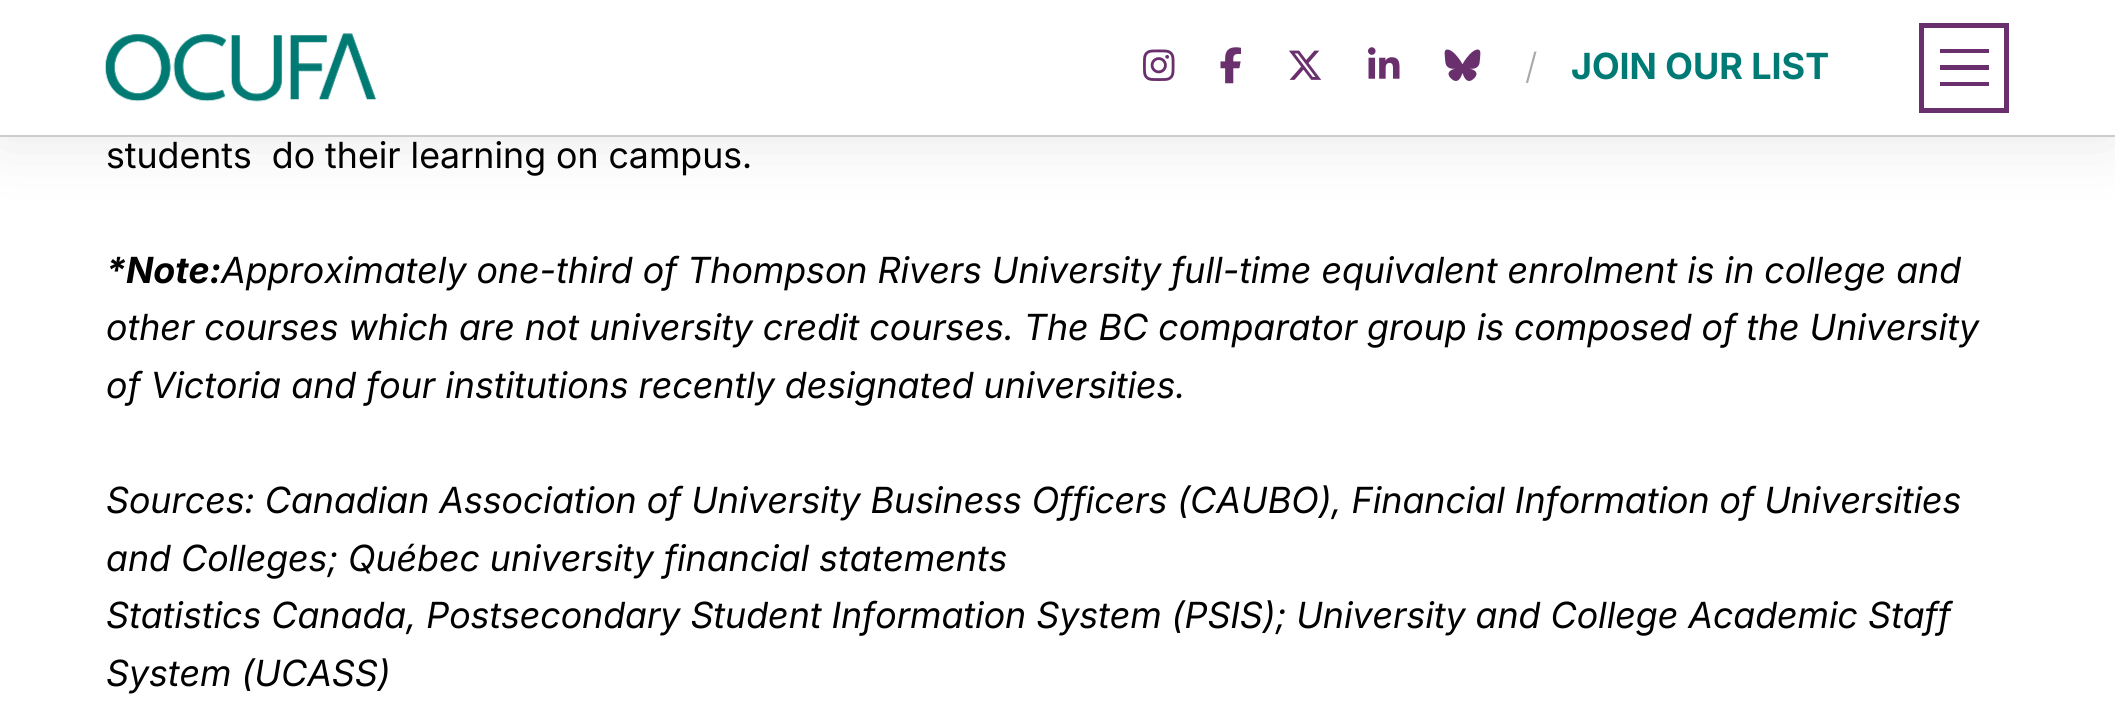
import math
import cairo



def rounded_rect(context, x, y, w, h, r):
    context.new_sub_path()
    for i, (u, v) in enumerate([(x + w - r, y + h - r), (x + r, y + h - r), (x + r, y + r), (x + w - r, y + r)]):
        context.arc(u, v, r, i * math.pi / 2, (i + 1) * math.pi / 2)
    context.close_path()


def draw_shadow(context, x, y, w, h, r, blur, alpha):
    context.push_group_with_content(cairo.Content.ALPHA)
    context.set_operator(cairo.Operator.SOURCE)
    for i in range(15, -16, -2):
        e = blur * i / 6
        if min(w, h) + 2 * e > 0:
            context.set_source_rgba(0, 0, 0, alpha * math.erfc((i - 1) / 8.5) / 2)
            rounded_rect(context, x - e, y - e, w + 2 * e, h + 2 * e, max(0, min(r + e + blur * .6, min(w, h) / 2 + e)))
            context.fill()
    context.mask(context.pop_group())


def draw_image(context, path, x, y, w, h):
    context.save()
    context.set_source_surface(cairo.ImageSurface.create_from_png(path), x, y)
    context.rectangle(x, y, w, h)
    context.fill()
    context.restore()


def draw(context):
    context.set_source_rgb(1, 1, 1)
    context.paint()
    context.set_source_rgb(0, 0, 0)
    draw_shadow(context, 0, 0, 2115, 137, 0, 34, 0.1)
    context.set_source_rgb(1, 1, 1)
    context.rectangle(0, 0, 2115, 135)
    context.fill()
    context.set_source_rgb(204 / 255, 204 / 255, 204 / 255)
    context.rectangle(0, 135, 2115, 2)
    context.fill()
    draw_image(context, "images/1.png", 105, 33, 271, 69)
    draw_image(context, "images/2.png", 1143, 49, 32, 32)
    draw_image(context, "images/3.png", 1220, 47, 21, 37)
    draw_image(context, "images/4.png", 1289, 50, 33, 30)
    draw_image(context, "images/5.png", 1368, 47, 32, 32)
    draw_image(context, "images/6.png", 1444, 49, 37, 32)
    context.rectangle(1921.5, 25.5, 85, 85)
    context.set_source_rgb(106 / 255, 48 / 255, 110 / 255)
    context.set_line_width(5)
    context.stroke()
    context.rectangle(1940, 49, 49, 4)
    context.fill()
    context.rectangle(1940, 65, 49, 5)
    context.fill()
    context.rectangle(1940, 82, 49, 4)
    context.fill()
    context.select_font_face("Inter Light")
    context.set_font_size(36)
    context.set_source_rgb(170 / 255, 170 / 255, 170 / 255)
    context.move_to(1525, 79)
    context.show_text("/")
    context.select_font_face("Inter", cairo.FontSlant.NORMAL, cairo.FontWeight.BOLD)
    context.set_source_rgb(0, 122 / 255, 116 / 255)
    context.move_to(1571, 79)
    context.show_text("JOIN OUR LIST")
    context.select_font_face("Inter")
    context.set_source_rgb(0, 0, 0)
    context.move_to(106, 168)
    context.show_text("students  do their learning on campus.")
    context.select_font_face("Inter", cairo.FontSlant.ITALIC, cairo.FontWeight.BOLD)
    context.move_to(106, 283)
    context.show_text("*Note:")
    context.select_font_face("Inter", cairo.FontSlant.ITALIC)
    context.move_to(221, 283)
    context.show_text("Approximately one-third of Thompson Rivers University full-time equivalent enrolment is in college and")
    context.move_to(106, 340)
    context.show_text("other courses which are not university credit courses. The BC comparator group is composed of the University")
    context.move_to(106, 398)
    context.show_text("of Victoria and four institutions recently designated universities.")
    context.move_to(106, 513)
    context.show_text("Sources: Canadian Association of University Business Officers (CAUBO), Financial Information of Universities")
    context.move_to(106, 571)
    context.show_text("and Colleges; Québec university financial statements")
    context.move_to(106, 628)
    context.show_text("Statistics Canada, Postsecondary Student Information System (PSIS); University and College Academic Staff")
    context.move_to(106, 686)
    context.show_text("System (UCASS)")


surface = cairo.ImageSurface(cairo.Format.RGB24, 2115, 710)
context = cairo.Context(surface)
options = cairo.FontOptions()
options.set_hint_metrics(cairo.HintMetrics.OFF)
options.set_hint_style(cairo.HintStyle.NONE)
context.set_font_options(options)
context.set_miter_limit(4)
draw(context)
surface.write_to_png("out.png")
